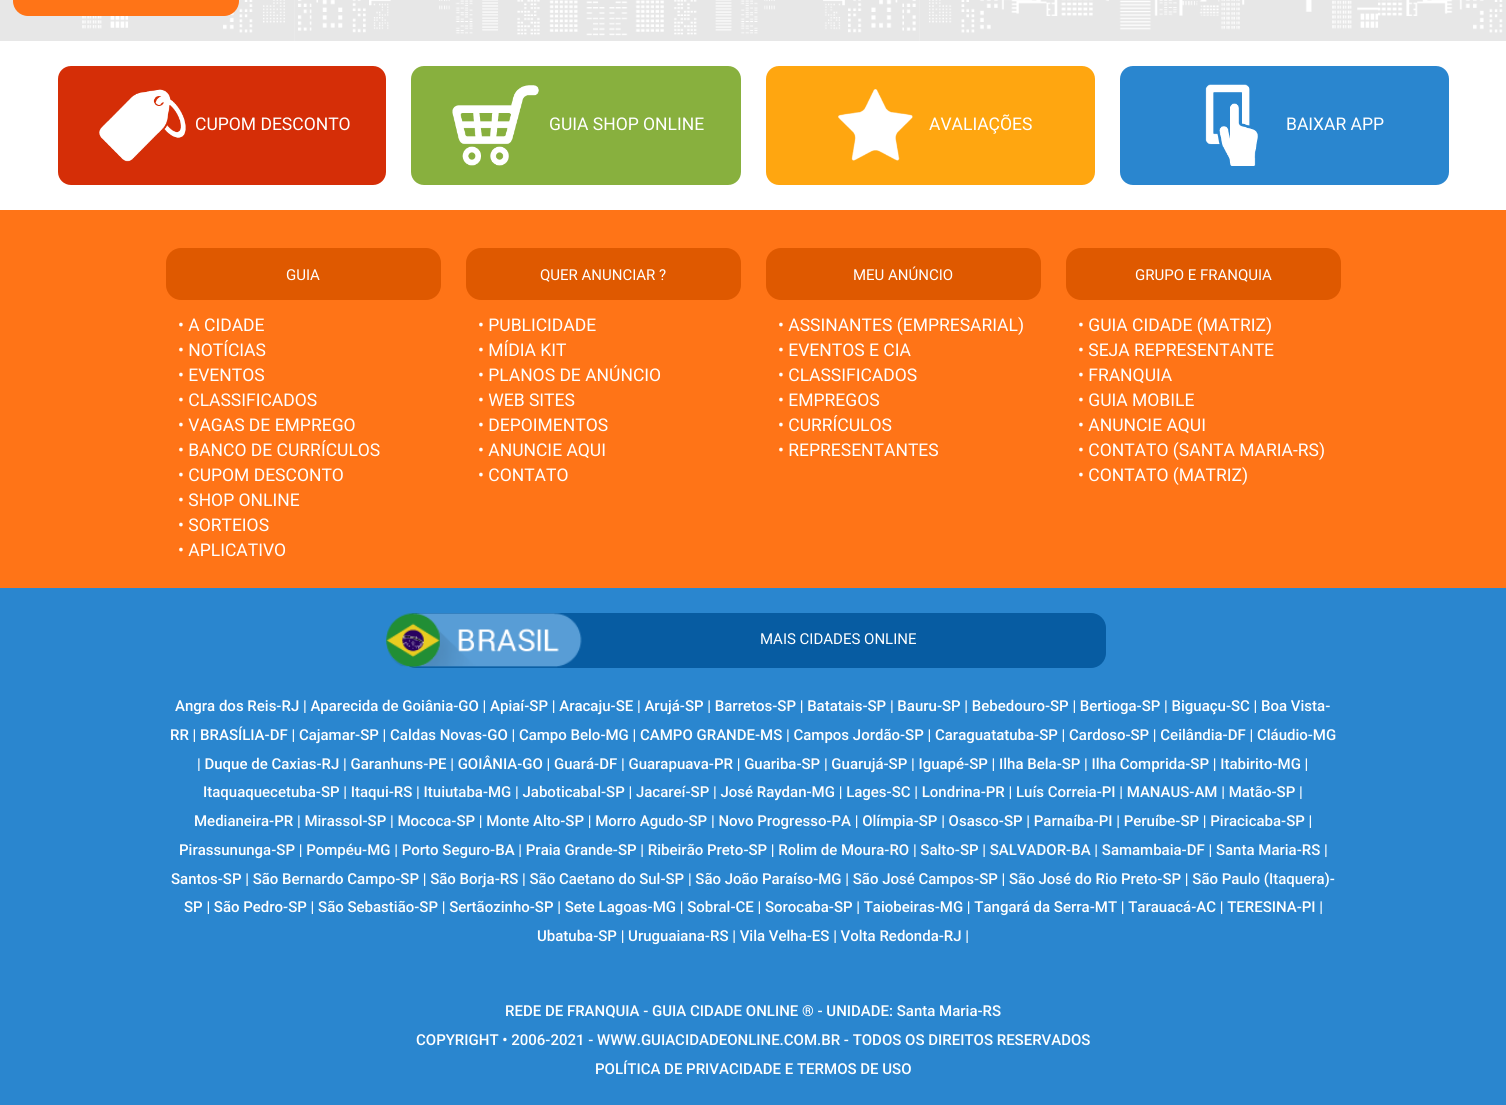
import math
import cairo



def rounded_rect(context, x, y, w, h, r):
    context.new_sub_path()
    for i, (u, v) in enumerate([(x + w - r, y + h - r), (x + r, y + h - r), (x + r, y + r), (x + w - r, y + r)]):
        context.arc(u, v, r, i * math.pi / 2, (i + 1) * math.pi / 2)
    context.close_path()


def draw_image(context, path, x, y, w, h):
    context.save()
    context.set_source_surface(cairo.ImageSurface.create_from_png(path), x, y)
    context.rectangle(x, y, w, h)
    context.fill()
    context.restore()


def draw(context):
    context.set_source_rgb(42 / 255, 134 / 255, 207 / 255)
    context.paint()
    context.set_source_rgb(1, 1, 1)
    context.rectangle(0, 0, 1506, 210)
    context.fill()
    draw_image(context, "images/1.png", 0, 0, 1506, 41)
    context.set_source_rgb(1, 116 / 255, 23 / 255)
    rounded_rect(context, 13, -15, 226, 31, 15)
    context.fill()
    context.set_source_rgb(213 / 255, 46 / 255, 7 / 255)
    rounded_rect(context, 58, 66, 328, 119, 13)
    context.fill()
    draw_image(context, "images/2.png", 99, 89, 87, 73)
    context.set_source_rgb(136 / 255, 176 / 255, 62 / 255)
    rounded_rect(context, 411, 66, 330, 119, 13)
    context.fill()
    draw_image(context, "images/3.png", 452, 85, 87, 81)
    context.set_source_rgb(1, 166 / 255, 16 / 255)
    rounded_rect(context, 766, 66, 329, 119, 13)
    context.fill()
    draw_image(context, "images/4.png", 838, 89, 75, 72)
    context.set_source_rgb(42 / 255, 134 / 255, 207 / 255)
    rounded_rect(context, 1120, 66, 329, 119, 13)
    context.fill()
    draw_image(context, "images/5.png", 1205, 84, 53, 82)
    context.set_source_rgb(1, 116 / 255, 23 / 255)
    context.rectangle(0, 210, 1506, 378)
    context.fill()
    context.set_source_rgb(223 / 255, 89 / 255, 0)
    rounded_rect(context, 166, 248, 275, 52, 15)
    context.fill()
    rounded_rect(context, 466, 248, 275, 52, 15)
    context.fill()
    rounded_rect(context, 766, 248, 275, 52, 15)
    context.fill()
    rounded_rect(context, 1066, 248, 275, 52, 15)
    context.fill()
    context.set_source_rgb(7 / 255, 92 / 255, 162 / 255)
    rounded_rect(context, 401, 613, 705, 55, 15)
    context.fill()
    draw_image(context, "images/6.png", 386, 613, 196, 55)
    context.select_font_face("Roboto")
    context.set_font_size(17.5)
    context.set_source_rgb(1, 1, 1)
    context.move_to(195, 130)
    context.show_text("CUPOM DESCONTO")
    context.move_to(549, 130)
    context.show_text("GUIA SHOP ONLINE")
    context.move_to(929, 130)
    context.show_text("AVALIAÇÕES")
    context.move_to(1286, 130)
    context.show_text("BAIXAR APP")
    context.set_font_size(15)
    context.move_to(286, 280)
    context.show_text("GUIA")
    context.set_font_size(17.5)
    context.move_to(178, 331)
    context.show_text("• A CIDADE")
    context.move_to(178, 356)
    context.show_text("• NOTÍCIAS")
    context.move_to(178, 381)
    context.show_text("• EVENTOS")
    context.move_to(178, 406)
    context.show_text("• CLASSIFICADOS")
    context.move_to(178, 431)
    context.show_text("• VAGAS DE EMPREGO")
    context.move_to(178, 456)
    context.show_text("• BANCO DE CURRÍCULOS")
    context.move_to(178, 481)
    context.show_text("• CUPOM DESCONTO")
    context.move_to(178, 506)
    context.show_text("• SHOP ONLINE")
    context.move_to(178, 531)
    context.show_text("• SORTEIOS")
    context.move_to(178, 556)
    context.show_text("• APLICATIVO")
    context.set_font_size(15)
    context.move_to(540, 280)
    context.show_text("QUER ANUNCIAR ?")
    context.set_font_size(17.5)
    context.move_to(478, 331)
    context.show_text("• PUBLICIDADE")
    context.move_to(478, 356)
    context.show_text("• MÍDIA KIT")
    context.move_to(478, 381)
    context.show_text("• PLANOS DE ANÚNCIO")
    context.move_to(478, 406)
    context.show_text("• WEB SITES")
    context.move_to(478, 431)
    context.show_text("• DEPOIMENTOS")
    context.move_to(478, 456)
    context.show_text("• ANUNCIE AQUI")
    context.move_to(478, 481)
    context.show_text("• CONTATO")
    context.set_font_size(15)
    context.move_to(853, 280)
    context.show_text("MEU ANÚNCIO")
    context.set_font_size(17.5)
    context.move_to(778, 331)
    context.show_text("• ASSINANTES (EMPRESARIAL)")
    context.move_to(778, 356)
    context.show_text("• EVENTOS E CIA")
    context.move_to(778, 381)
    context.show_text("• CLASSIFICADOS")
    context.move_to(778, 406)
    context.show_text("• EMPREGOS")
    context.move_to(778, 431)
    context.show_text("• CURRÍCULOS")
    context.move_to(778, 456)
    context.show_text("• REPRESENTANTES")
    context.set_font_size(15)
    context.move_to(1135, 280)
    context.show_text("GRUPO E FRANQUIA")
    context.set_font_size(17.5)
    context.move_to(1078, 331)
    context.show_text("• GUIA CIDADE (MATRIZ)")
    context.move_to(1078, 356)
    context.show_text("• SEJA REPRESENTANTE")
    context.move_to(1078, 381)
    context.show_text("• FRANQUIA")
    context.move_to(1078, 406)
    context.show_text("• GUIA MOBILE")
    context.move_to(1078, 431)
    context.show_text("• ANUNCIE AQUI")
    context.move_to(1078, 456)
    context.show_text("• CONTATO (SANTA MARIA-RS)")
    context.move_to(1078, 481)
    context.show_text("• CONTATO (MATRIZ)")
    context.set_font_size(15)
    context.move_to(760, 644)
    context.show_text("MAIS CIDADES ONLINE")
    context.select_font_face("Roboto Medium")
    context.move_to(175, 711)
    context.show_text("Angra dos Reis-RJ | Aparecida de Goiânia-GO | Apiaí-SP | Aracaju-SE | Arujá-SP | Barretos-SP | Batatais-SP | Bauru-SP | Bebedouro-SP | Bertioga-SP | Biguaçu-SC | Boa Vista-")
    context.move_to(170, 740)
    context.show_text("RR | BRASÍLIA-DF | Cajamar-SP | Caldas Novas-GO | Campo Belo-MG | CAMPO GRANDE-MS | Campos Jordão-SP | Caraguatatuba-SP | Cardoso-SP | Ceilândia-DF | Cláudio-MG")
    context.move_to(197, 769)
    context.show_text("| Duque de Caxias-RJ | Garanhuns-PE | GOIÂNIA-GO | Guará-DF | Guarapuava-PR | Guariba-SP | Guarujá-SP | Iguapé-SP | Ilha Bela-SP | Ilha Comprida-SP | Itabirito-MG |")
    context.move_to(203, 797)
    context.show_text("Itaquaquecetuba-SP | Itaqui-RS | Ituiutaba-MG | Jaboticabal-SP | Jacareí-SP | José Raydan-MG | Lages-SC | Londrina-PR | Luís Correia-PI | MANAUS-AM | Matão-SP |")
    context.move_to(194, 826)
    context.show_text("Medianeira-PR | Mirassol-SP | Mococa-SP | Monte Alto-SP | Morro Agudo-SP | Novo Progresso-PA | Olímpia-SP | Osasco-SP | Parnaíba-PI | Peruíbe-SP | Piracicaba-SP |")
    context.move_to(179, 855)
    context.show_text("Pirassununga-SP | Pompéu-MG | Porto Seguro-BA | Praia Grande-SP | Ribeirão Preto-SP | Rolim de Moura-RO | Salto-SP | SALVADOR-BA | Samambaia-DF | Santa Maria-RS |")
    context.move_to(171, 884)
    context.show_text("Santos-SP | São Bernardo Campo-SP | São Borja-RS | São Caetano do Sul-SP | São João Paraíso-MG | São José Campos-SP | São José do Rio Preto-SP | São Paulo (Itaquera)-")
    context.move_to(184, 912)
    context.show_text("SP | São Pedro-SP | São Sebastião-SP | Sertãozinho-SP | Sete Lagoas-MG | Sobral-CE | Sorocaba-SP | Taiobeiras-MG | Tangará da Serra-MT | Tarauacá-AC | TERESINA-PI |")
    context.move_to(537, 941)
    context.show_text("Ubatuba-SP | Uruguaiana-RS | Vila Velha-ES | Volta Redonda-RJ |")
    context.move_to(505, 1016)
    context.show_text("REDE DE FRANQUIA - GUIA CIDADE ONLINE ® - UNIDADE: Santa Maria-RS")
    context.move_to(416, 1045)
    context.show_text("COPYRIGHT • 2006-2021 - WWW.GUIACIDADEONLINE.COM.BR - TODOS OS DIREITOS RESERVADOS")
    context.move_to(595, 1074)
    context.show_text("POLÍTICA DE PRIVACIDADE E TERMOS DE USO")


surface = cairo.ImageSurface(cairo.Format.RGB24, 1506, 1105)
context = cairo.Context(surface)
options = cairo.FontOptions()
options.set_hint_metrics(cairo.HintMetrics.OFF)
options.set_hint_style(cairo.HintStyle.NONE)
context.set_font_options(options)
context.set_miter_limit(4)
draw(context)
surface.write_to_png("out.png")
